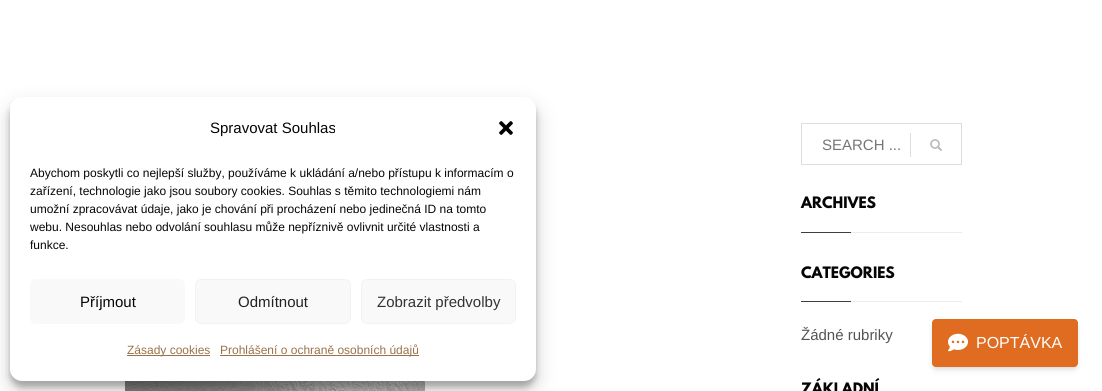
import math
import cairo



def rounded_rect(context, x, y, w, h, r):
    context.new_sub_path()
    for i, (u, v) in enumerate([(x + w - r, y + h - r), (x + r, y + h - r), (x + r, y + r), (x + w - r, y + r)]):
        context.arc(u, v, r, i * math.pi / 2, (i + 1) * math.pi / 2)
    context.close_path()


def draw_shadow(context, x, y, w, h, r, blur, alpha):
    context.push_group_with_content(cairo.Content.ALPHA)
    context.set_operator(cairo.Operator.SOURCE)
    for i in range(15, -16, -2):
        e = blur * i / 6
        if min(w, h) + 2 * e > 0:
            context.set_source_rgba(0, 0, 0, alpha * math.erfc((i - 1) / 8.5) / 2)
            rounded_rect(context, x - e, y - e, w + 2 * e, h + 2 * e, max(0, min(r + e + blur * .6, min(w, h) / 2 + e)))
            context.fill()
    context.mask(context.pop_group())


def draw_image(context, path, x, y, w, h):
    context.save()
    context.set_source_surface(cairo.ImageSurface.create_from_png(path), x, y)
    context.rectangle(x, y, w, h)
    context.fill()
    context.restore()


def draw(context):
    context.set_source_rgb(1, 1, 1)
    context.paint()
    draw_image(context, "images/2.png", 125, 381, 300, 10)
    context.set_source_rgb(0, 0, 0)
    draw_shadow(context, 10, 103, 526, 284, 12, 3, 0.23)
    draw_shadow(context, 10, 107, 526, 284, 12, 10, 0.19)
    context.set_source_rgb(1, 1, 1)
    rounded_rect(context, 10, 97, 526, 284, 12)
    context.fill()
    draw_image(context, "images/1.png", 499, 121, 14, 14)
    context.set_source_rgb(249 / 255, 249 / 255, 249 / 255)
    rounded_rect(context, 30, 279, 155, 45, 6)
    context.fill()
    rounded_rect(context, 195.5, 279.5, 155, 44, 5.5)
    context.fill_preserve()
    context.set_source_rgb(242 / 255, 242 / 255, 242 / 255)
    context.set_line_width(1)
    context.stroke()
    context.set_source_rgb(249 / 255, 249 / 255, 249 / 255)
    rounded_rect(context, 361.5, 279.5, 154, 44, 5.5)
    context.fill_preserve()
    context.set_source_rgb(242 / 255, 242 / 255, 242 / 255)
    context.stroke()
    context.set_source_rgb(152 / 255, 114 / 255, 73 / 255)
    context.rectangle(127, 355, 83, 1)
    context.fill()
    context.rectangle(220, 355, 199, 1)
    context.fill()
    context.rectangle(801.5, 123.5, 160, 41)
    context.set_source_rgb(221 / 255, 221 / 255, 221 / 255)
    context.stroke()
    context.rectangle(910, 133, 1, 24)
    context.fill()
    draw_image(context, "images/3.png", 930, 139, 12, 12)
    context.set_source_rgb(63 / 255, 63 / 255, 63 / 255)
    context.rectangle(801, 232, 50, 1)
    context.fill()
    context.set_source_rgb(236 / 255, 236 / 255, 236 / 255)
    context.rectangle(851, 232, 111, 1)
    context.fill()
    context.set_source_rgb(63 / 255, 63 / 255, 63 / 255)
    context.rectangle(801, 301, 50, 1)
    context.fill()
    context.set_source_rgb(236 / 255, 236 / 255, 236 / 255)
    context.rectangle(851, 301, 111, 1)
    context.fill()
    context.set_source_rgb(0, 0, 0)
    draw_shadow(context, 933, 322, 144, 46, 3, 2, 0.06)
    draw_shadow(context, 933, 324, 144, 46, 3, 3, 0.1)
    context.set_source_rgb(223 / 255, 108 / 255, 33 / 255)
    rounded_rect(context, 932, 319, 146, 48, 4)
    context.fill()
    draw_image(context, "images/4.png", 948, 333, 20, 19)
    context.select_font_face("Liberation Sans")
    context.set_font_size(15)
    context.set_source_rgb(5 / 255, 5 / 255, 5 / 255)
    context.move_to(210, 133)
    context.show_text("Spravovat Souhlas")
    context.set_font_size(12)
    context.move_to(30, 177)
    context.show_text("Abychom poskytli co nejlepší služby, používáme k ukládání a/nebo přístupu k informacím o")
    context.move_to(30, 195)
    context.show_text("zařízení, technologie jako jsou soubory cookies. Souhlas s těmito technologiemi nám")
    context.move_to(30, 213)
    context.show_text("umožní zpracovávat údaje, jako je chování při procházení nebo jedinečná ID na tomto")
    context.move_to(30, 231)
    context.show_text("webu. Nesouhlas nebo odvolání souhlasu může nepříznivě ovlivnit určité vlastnosti a")
    context.move_to(30, 249)
    context.show_text("funkce.")
    context.set_font_size(15)
    context.move_to(80, 307)
    context.show_text("Příjmout")
    context.set_source_rgb(34 / 255, 34 / 255, 34 / 255)
    context.move_to(238, 307)
    context.show_text("Odmítnout")
    context.set_source_rgb(51 / 255, 51 / 255, 51 / 255)
    context.move_to(377, 307)
    context.show_text("Zobrazit předvolby")
    context.set_font_size(12)
    context.set_source_rgb(152 / 255, 114 / 255, 73 / 255)
    context.move_to(127, 354)
    context.show_text("Zásady cookies")
    context.move_to(220, 354)
    context.show_text("Prohlášení o ochraně osobních údajů")
    context.set_font_size(15)
    context.set_source_rgb(117 / 255, 117 / 255, 117 / 255)
    context.move_to(822, 150)
    context.show_text("SEARCH ...")
    context.select_font_face("League Spartan", cairo.FontSlant.NORMAL, cairo.FontWeight.BOLD)
    context.set_font_size(14)
    context.set_source_rgb(5 / 255, 5 / 255, 5 / 255)
    context.move_to(801, 208)
    context.show_text("ARCHIVES")
    context.move_to(801, 278)
    context.show_text("CATEGORIES")
    context.select_font_face("Liberation Sans")
    context.set_font_size(15)
    context.set_source_rgb(83 / 255, 83 / 255, 83 / 255)
    context.move_to(801, 340)
    context.show_text("Žádné rubriky")
    context.select_font_face("League Spartan", cairo.FontSlant.NORMAL, cairo.FontWeight.BOLD)
    context.set_font_size(14)
    context.set_source_rgb(5 / 255, 5 / 255, 5 / 255)
    context.move_to(801, 394)
    context.show_text("ZÁKLADNÍ")
    context.select_font_face("Liberation Sans")
    context.set_font_size(16)
    context.set_source_rgb(1, 1, 1)
    context.move_to(976, 348)
    context.show_text("POPTÁVKA")


surface = cairo.ImageSurface(cairo.Format.RGB24, 1102, 391)
context = cairo.Context(surface)
options = cairo.FontOptions()
options.set_hint_metrics(cairo.HintMetrics.OFF)
options.set_hint_style(cairo.HintStyle.NONE)
context.set_font_options(options)
context.set_miter_limit(4)
draw(context)
surface.write_to_png("out.png")
